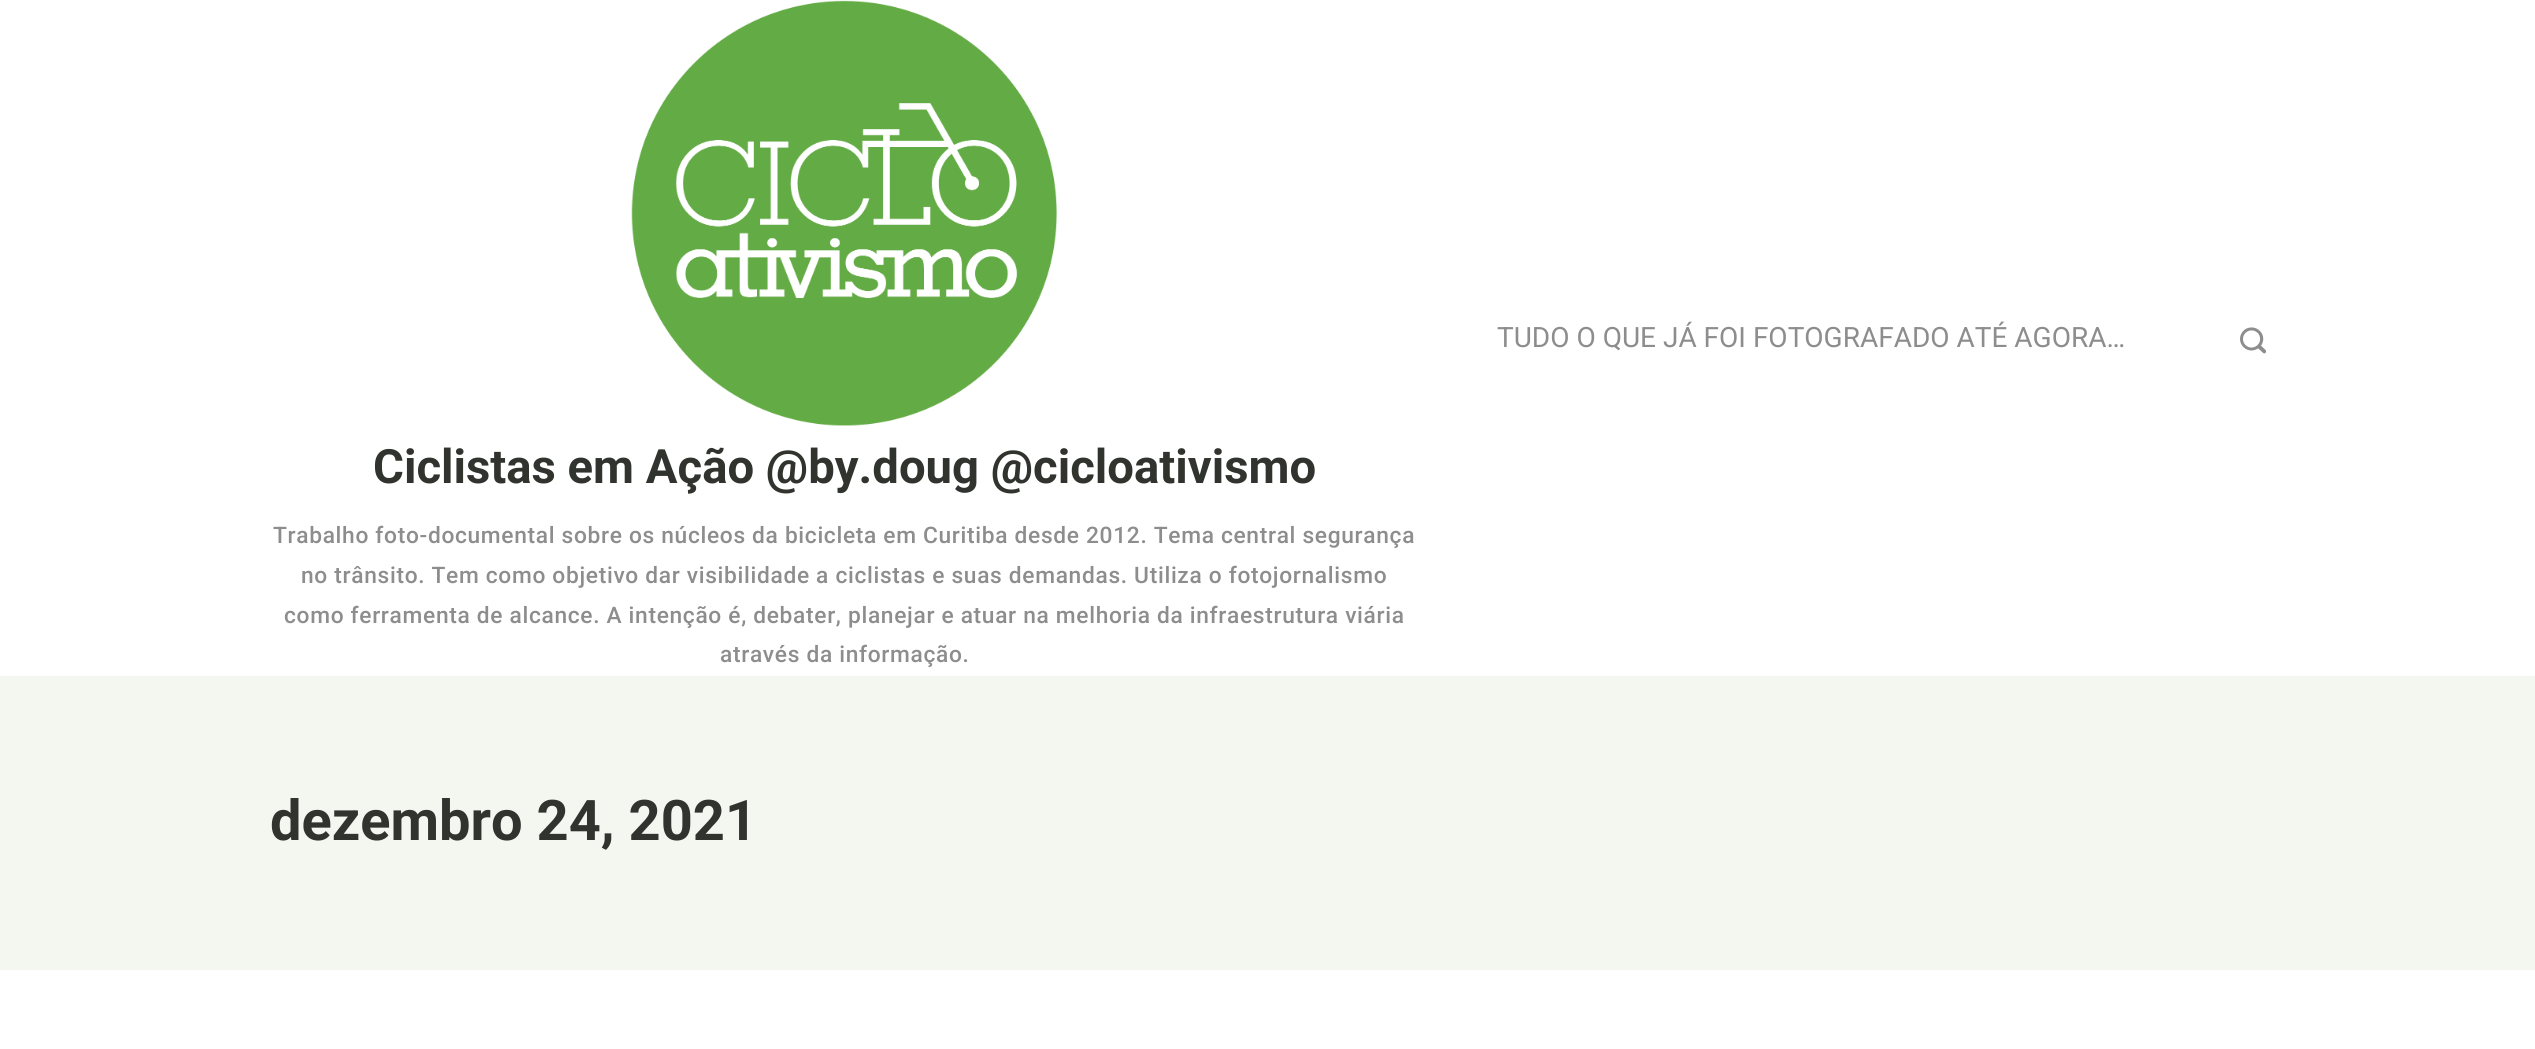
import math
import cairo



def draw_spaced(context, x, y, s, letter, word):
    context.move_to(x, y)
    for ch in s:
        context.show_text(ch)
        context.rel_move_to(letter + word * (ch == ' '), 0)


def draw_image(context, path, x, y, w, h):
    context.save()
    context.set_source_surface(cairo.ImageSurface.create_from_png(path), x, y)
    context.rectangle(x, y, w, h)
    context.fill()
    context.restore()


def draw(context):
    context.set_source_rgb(1, 1, 1)
    context.paint()
    draw_image(context, "images/1.png", 2240, 327, 26, 27)
    draw_image(context, "images/2.png", 631, 0, 426, 426)
    context.set_source_rgb(243 / 255, 247 / 255, 240 / 255)
    context.rectangle(0, 676, 2535, 294)
    context.fill()
    context.select_font_face("Roboto")
    context.set_font_size(28)
    context.set_source_rgb(141 / 255, 141 / 255, 141 / 255)
    context.move_to(1497, 347)
    context.show_text("TUDO O QUE JÁ FOI FOTOGRAFADO ATÉ AGORA…")
    context.select_font_face("Roboto", cairo.FontSlant.NORMAL, cairo.FontWeight.BOLD)
    context.set_font_size(47.25)
    context.set_source_rgb(49 / 255, 51 / 255, 46 / 255)
    context.move_to(373, 483)
    context.show_text("Ciclistas em Ação @by.doug @cicloativismo")
    context.select_font_face("Roboto Medium")
    context.set_font_size(22.75)
    context.set_source_rgb(141 / 255, 141 / 255, 141 / 255)
    draw_spaced(context, 273, 543, "Trabalho foto-documental sobre os núcleos da bicicleta em Curitiba desde 2012. Tema central segurança", 0.68, 0)
    draw_spaced(context, 301, 583, "no trânsito. Tem como objetivo dar visibilidade a ciclistas e suas demandas. Utiliza o fotojornalismo", 0.68, 0)
    draw_spaced(context, 284, 623, "como ferramenta de alcance. A intenção é, debater, planejar e atuar na melhoria da infraestrutura viária", 0.68, 0)
    draw_spaced(context, 720, 662, "através da informação.", 0.68, 0)
    context.select_font_face("Roboto", cairo.FontSlant.NORMAL, cairo.FontWeight.BOLD)
    context.set_font_size(56)
    context.set_source_rgb(49 / 255, 51 / 255, 46 / 255)
    context.move_to(270, 840)
    context.show_text("dezembro 24, 2021")


surface = cairo.ImageSurface(cairo.Format.RGB24, 2535, 1049)
context = cairo.Context(surface)
options = cairo.FontOptions()
options.set_hint_metrics(cairo.HintMetrics.OFF)
options.set_hint_style(cairo.HintStyle.NONE)
context.set_font_options(options)
context.set_miter_limit(4)
draw(context)
surface.write_to_png("out.png")
